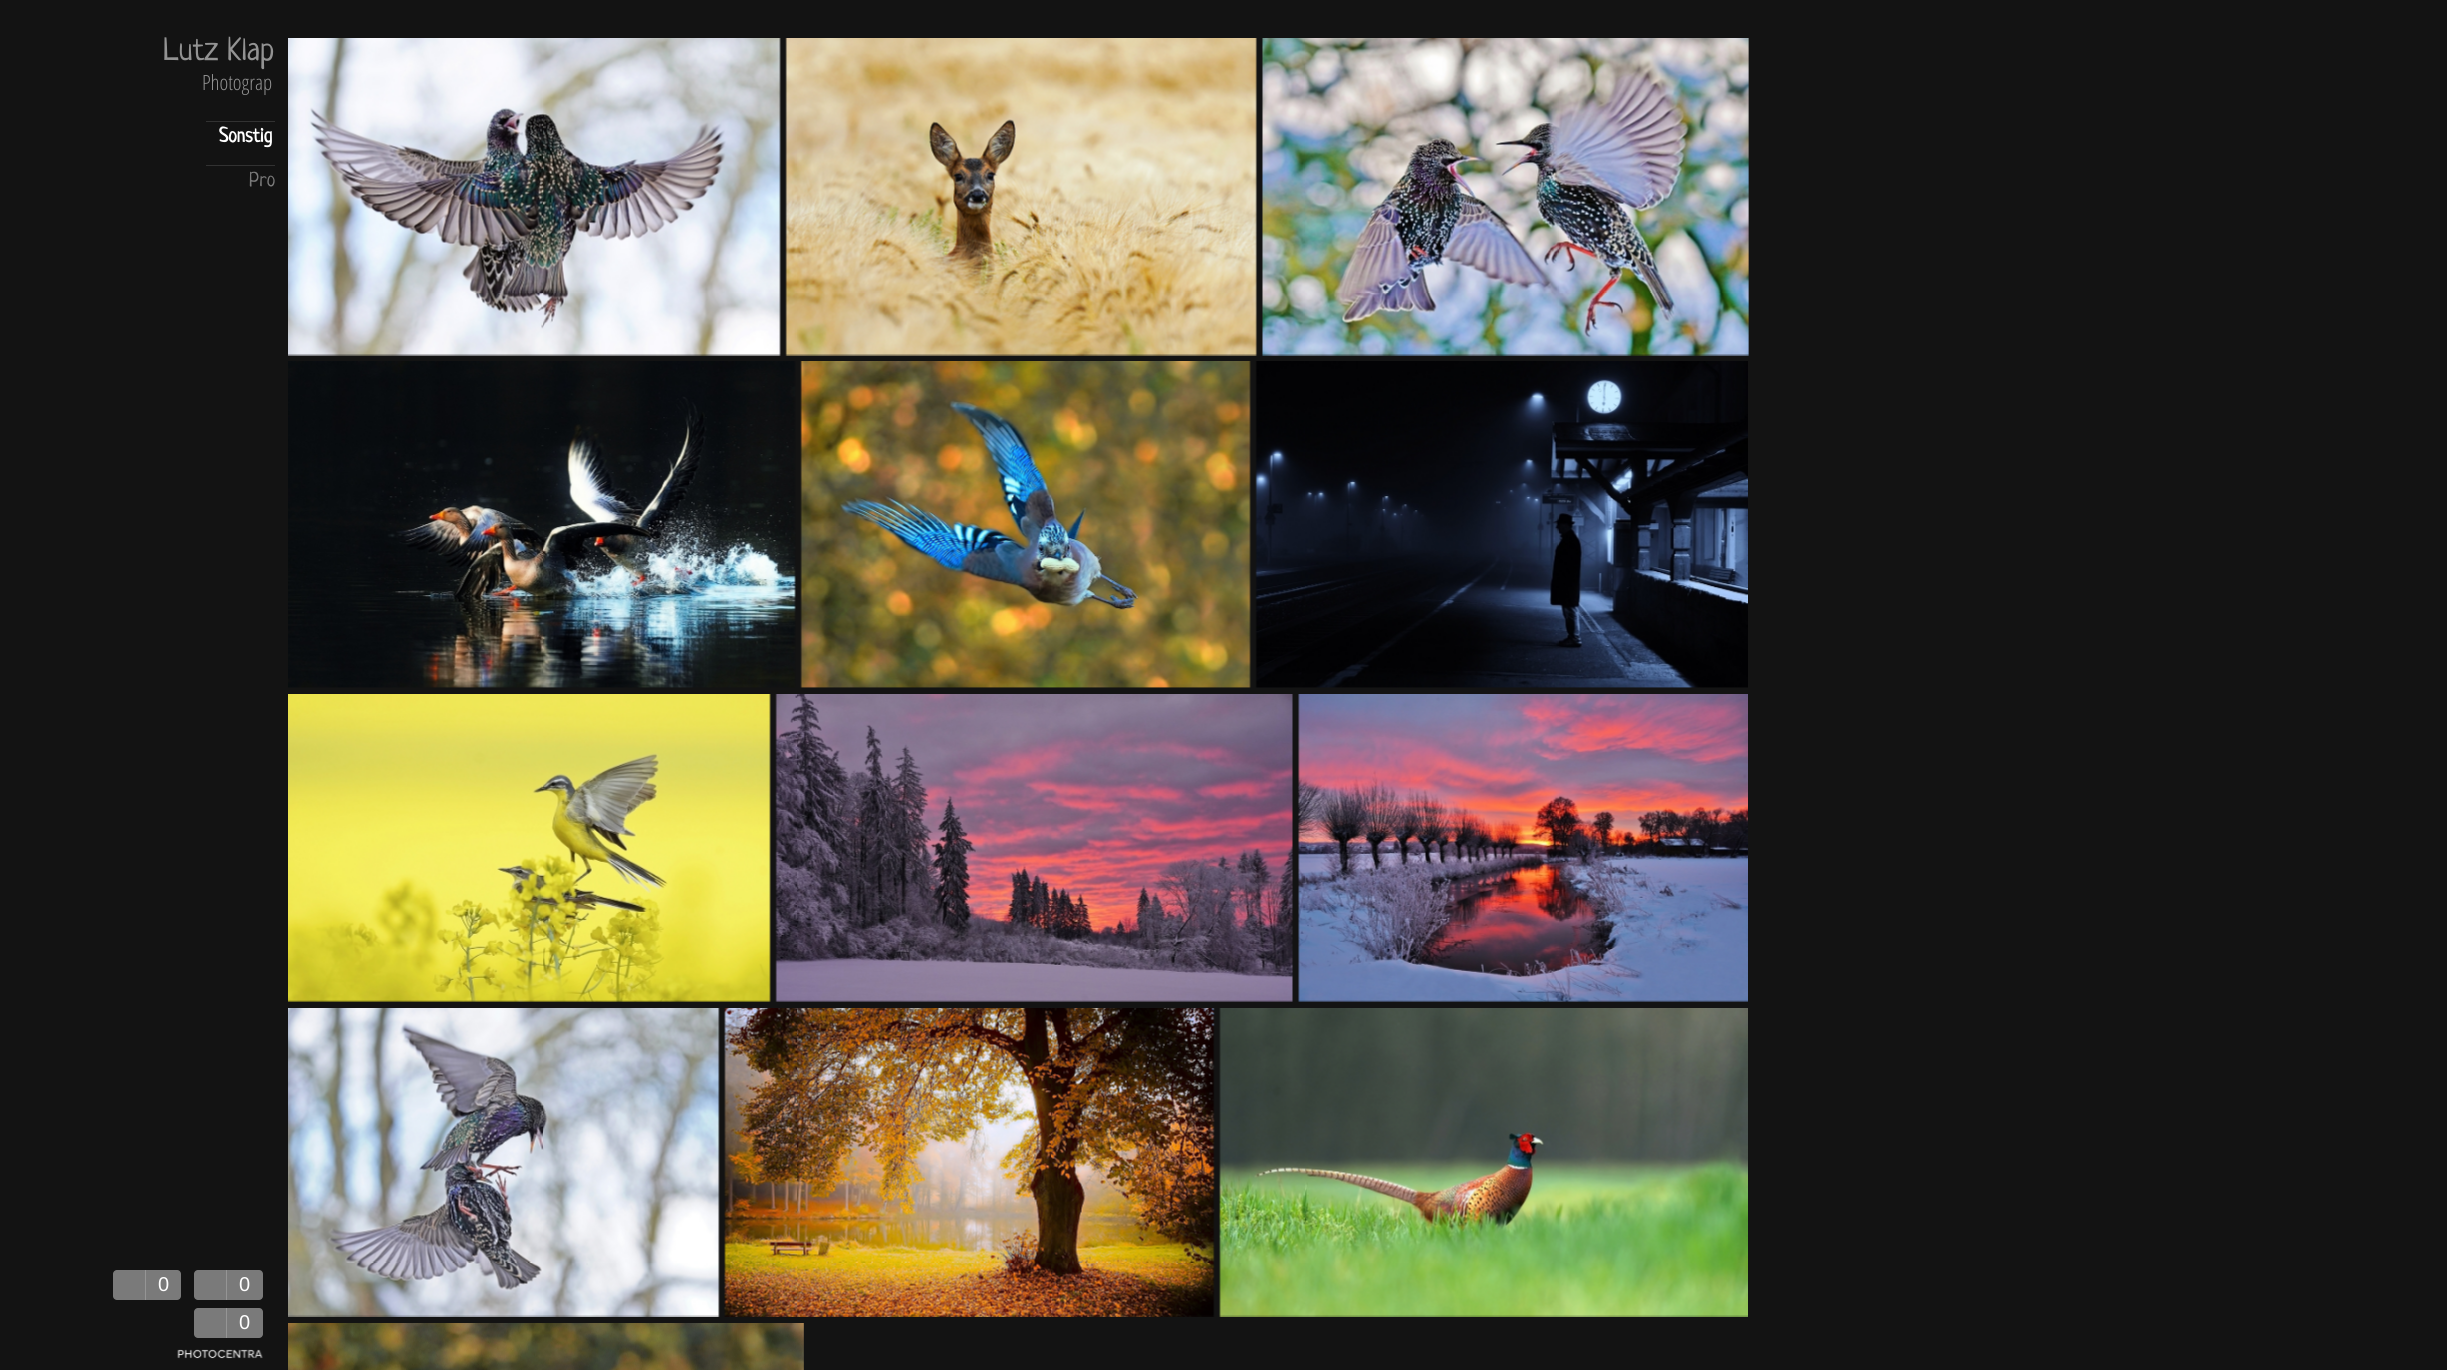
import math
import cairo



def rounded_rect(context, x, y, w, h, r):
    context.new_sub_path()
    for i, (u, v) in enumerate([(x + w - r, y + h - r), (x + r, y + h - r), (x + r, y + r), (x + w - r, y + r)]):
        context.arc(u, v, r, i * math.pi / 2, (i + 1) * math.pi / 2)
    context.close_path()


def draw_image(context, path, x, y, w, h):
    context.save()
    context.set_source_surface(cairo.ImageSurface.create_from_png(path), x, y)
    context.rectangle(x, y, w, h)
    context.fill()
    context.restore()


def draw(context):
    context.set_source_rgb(19 / 255, 19 / 255, 19 / 255)
    context.paint()
    context.set_source_rgb(50 / 255, 50 / 255, 50 / 255)
    context.rectangle(206, 121, 69, 1)
    context.fill()
    context.rectangle(206, 165, 69, 1)
    context.fill()
    context.set_source_rgb(122 / 255, 122 / 255, 122 / 255)
    rounded_rect(context, 113, 1270, 68, 30, 4)
    context.fill()
    context.set_source_rgb(149 / 255, 149 / 255, 149 / 255)
    context.rectangle(145, 1270, 1, 30)
    context.fill()
    context.set_source_rgb(122 / 255, 122 / 255, 122 / 255)
    rounded_rect(context, 194, 1270, 69, 30, 4)
    context.fill()
    context.set_source_rgb(149 / 255, 149 / 255, 149 / 255)
    context.rectangle(226, 1270, 1, 30)
    context.fill()
    context.set_source_rgb(122 / 255, 122 / 255, 122 / 255)
    rounded_rect(context, 194, 1308, 69, 30, 4)
    context.fill()
    context.set_source_rgb(149 / 255, 149 / 255, 149 / 255)
    context.rectangle(226, 1308, 1, 30)
    context.fill()
    draw_image(context, "images/1.png", 177, 1349, 86, 10)
    draw_image(context, "images/2.png", 288, 38, 493, 318)
    draw_image(context, "images/3.png", 785, 38, 472, 318)
    draw_image(context, "images/4.png", 1262, 38, 487, 318)
    draw_image(context, "images/5.png", 288, 361, 508, 327)
    draw_image(context, "images/6.png", 800, 361, 451, 327)
    draw_image(context, "images/7.png", 1255, 361, 493, 327)
    draw_image(context, "images/8.png", 288, 694, 483, 308)
    draw_image(context, "images/9.png", 775, 694, 518, 308)
    draw_image(context, "images/10.png", 1298, 694, 450, 308)
    draw_image(context, "images/11.png", 288, 1008, 432, 309)
    draw_image(context, "images/12.png", 724, 1008, 491, 309)
    draw_image(context, "images/13.png", 1219, 1008, 529, 309)
    draw_image(context, "images/14.png", 288, 1323, 516, 47)
    context.select_font_face("Neucha")
    context.set_font_size(32.5)
    context.set_source_rgb(147 / 255, 147 / 255, 147 / 255)
    context.move_to(163, 60)
    context.show_text("Lutz Klap")
    context.select_font_face("Open Sans Condensed Light")
    context.set_font_size(21)
    context.move_to(202, 90)
    context.show_text("Photograp")
    context.select_font_face("Neucha", cairo.FontSlant.NORMAL, cairo.FontWeight.BOLD)
    context.set_font_size(20)
    context.set_source_rgb(1, 1, 1)
    context.move_to(219, 142)
    context.show_text("Sonstig")
    context.select_font_face("Neucha")
    context.set_source_rgb(122 / 255, 122 / 255, 122 / 255)
    context.move_to(249, 186)
    context.show_text("Pro")
    context.select_font_face("Liberation Sans")
    context.set_source_rgb(1, 1, 1)
    context.move_to(158, 1291)
    context.show_text("0")
    context.move_to(239, 1291)
    context.show_text("0")
    context.move_to(239, 1329)
    context.show_text("0")


surface = cairo.ImageSurface(cairo.Format.RGB24, 2447, 1370)
context = cairo.Context(surface)
options = cairo.FontOptions()
options.set_hint_metrics(cairo.HintMetrics.OFF)
options.set_hint_style(cairo.HintStyle.NONE)
context.set_font_options(options)
context.set_miter_limit(4)
draw(context)
surface.write_to_png("out.png")
